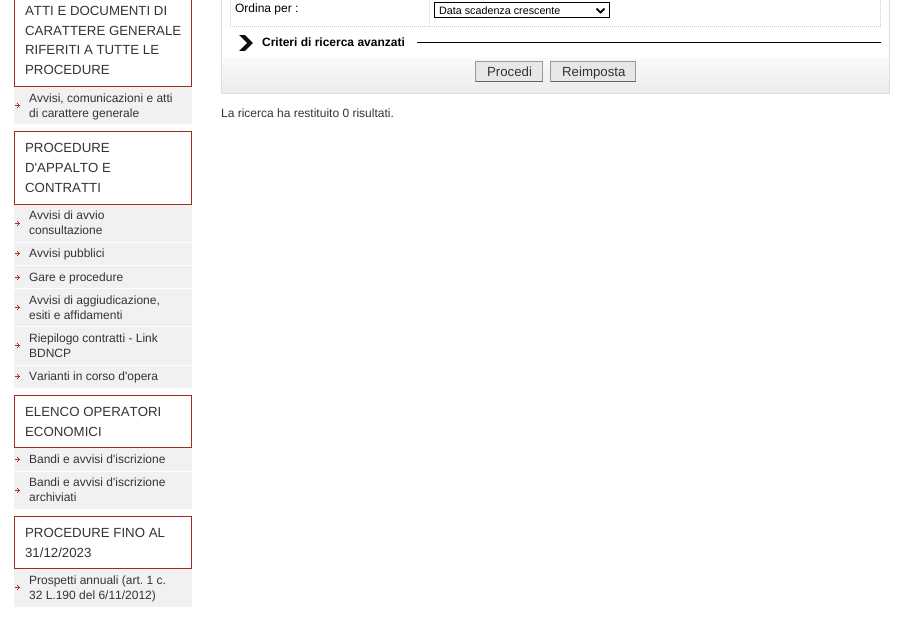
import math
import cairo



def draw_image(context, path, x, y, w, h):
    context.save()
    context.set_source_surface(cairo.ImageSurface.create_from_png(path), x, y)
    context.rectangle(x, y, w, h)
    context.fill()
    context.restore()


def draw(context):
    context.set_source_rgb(1, 1, 1)
    context.paint()
    context.rectangle(14.5, -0.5, 177, 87)
    context.set_source_rgb(160 / 255, 45 / 255, 29 / 255)
    context.set_line_width(1)
    context.stroke()
    context.set_source_rgb(241 / 255, 241 / 255, 241 / 255)
    context.rectangle(14, 87, 178, 37)
    context.fill()
    draw_image(context, "images/1.png", 15, 102, 6, 7)
    context.rectangle(14.5, 131.5, 177, 73)
    context.set_source_rgb(160 / 255, 45 / 255, 29 / 255)
    context.stroke()
    context.set_source_rgb(241 / 255, 241 / 255, 241 / 255)
    context.rectangle(14, 205, 178, 183)
    context.fill()
    draw_image(context, "images/1.png", 15, 220, 6, 7)
    context.set_source_rgb(1, 1, 1)
    context.rectangle(14, 242, 178, 1)
    context.fill()
    draw_image(context, "images/1.png", 15, 250, 6, 7)
    context.rectangle(14, 265, 178, 1)
    context.fill()
    draw_image(context, "images/1.png", 15, 274, 6, 7)
    context.rectangle(14, 288, 178, 1)
    context.fill()
    draw_image(context, "images/1.png", 15, 304, 6, 7)
    context.rectangle(14, 326, 178, 1)
    context.fill()
    draw_image(context, "images/1.png", 15, 342, 6, 7)
    context.rectangle(14, 365, 178, 1)
    context.fill()
    draw_image(context, "images/1.png", 15, 373, 6, 7)
    context.rectangle(14.5, 395.5, 177, 52)
    context.set_source_rgb(160 / 255, 45 / 255, 29 / 255)
    context.stroke()
    context.set_source_rgb(241 / 255, 241 / 255, 241 / 255)
    context.rectangle(14, 448, 178, 61)
    context.fill()
    draw_image(context, "images/1.png", 15, 456, 6, 7)
    context.set_source_rgb(1, 1, 1)
    context.rectangle(14, 471, 178, 1)
    context.fill()
    draw_image(context, "images/1.png", 15, 487, 6, 7)
    context.rectangle(14.5, 516.5, 177, 52)
    context.set_source_rgb(160 / 255, 45 / 255, 29 / 255)
    context.stroke()
    context.set_source_rgb(241 / 255, 241 / 255, 241 / 255)
    context.rectangle(14, 569, 178, 38)
    context.fill()
    draw_image(context, "images/1.png", 15, 584, 6, 7)
    draw_image(context, "images/2.png", 222, 58, 667, 35)
    context.rectangle(221.5, -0.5, 668, 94)
    context.set_source_rgb(221 / 255, 221 / 255, 221 / 255)
    context.stroke()
    context.new_path()
    context.move_to(880.5, -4)
    context.line_to(880.5, 27)
    context.set_source_rgb(204 / 255, 204 / 255, 204 / 255)
    context.set_dash([1, 1])
    context.stroke()
    context.new_path()
    context.move_to(230, 26.5)
    context.line_to(881, 26.5)
    context.stroke()
    context.new_path()
    context.move_to(230.5, -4)
    context.line_to(230.5, 27)
    context.stroke()
    context.save()
    context.rectangle(231, 0, 649, 26)
    context.clip()
    context.new_path()
    context.move_to(429.5, -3)
    context.line_to(429.5, 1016)
    context.stroke()
    context.restore()
    context.rectangle(434.5, 2.5, 175, 15)
    context.set_source_rgb(0, 0, 0)
    context.set_dash([])
    context.stroke()
    context.new_path()
    context.move_to(596.5, 8.5)
    context.line_to(600.5, 12.5)
    context.line_to(604.5, 8.5)
    context.set_line_width(2)
    context.stroke()
    draw_image(context, "images/3.png", 239, 35, 14, 16)
    context.rectangle(417, 42, 464, 1)
    context.fill()
    context.set_source_rgb(231 / 255, 231 / 255, 231 / 255)
    context.rectangle(476, 62, 66, 19)
    context.fill()
    context.set_source_rgb(153 / 255, 153 / 255, 153 / 255)
    context.rectangle(475, 61, 68, 1)
    context.fill()
    context.rectangle(542, 61, 1, 21)
    context.fill()
    context.set_source_rgb(100 / 255, 100 / 255, 100 / 255)
    context.rectangle(475, 81, 68, 1)
    context.fill()
    context.set_source_rgb(153 / 255, 153 / 255, 153 / 255)
    context.rectangle(475, 61, 1, 21)
    context.fill()
    context.set_source_rgb(231 / 255, 231 / 255, 231 / 255)
    context.rectangle(551, 62, 84, 19)
    context.fill()
    context.set_source_rgb(153 / 255, 153 / 255, 153 / 255)
    context.rectangle(550, 61, 86, 1)
    context.fill()
    context.rectangle(635, 61, 1, 21)
    context.fill()
    context.set_source_rgb(100 / 255, 100 / 255, 100 / 255)
    context.rectangle(550, 81, 86, 1)
    context.fill()
    context.set_source_rgb(153 / 255, 153 / 255, 153 / 255)
    context.rectangle(550, 61, 1, 21)
    context.fill()
    context.select_font_face("Liberation Sans")
    context.set_font_size(13.25)
    context.set_source_rgb(51 / 255, 51 / 255, 51 / 255)
    context.move_to(25, 15)
    context.show_text("ATTI E DOCUMENTI DI")
    context.move_to(25, 35)
    context.show_text("CARATTERE GENERALE")
    context.move_to(25, 54)
    context.show_text("RIFERITI A TUTTE LE")
    context.move_to(25, 74)
    context.show_text("PROCEDURE")
    context.set_font_size(12)
    context.move_to(29, 102)
    context.show_text("Avvisi, comunicazioni e atti")
    context.move_to(29, 117)
    context.show_text("di carattere generale")
    context.set_font_size(13.25)
    context.move_to(25, 152)
    context.show_text("PROCEDURE")
    context.move_to(25, 172)
    context.show_text("D'APPALTO E")
    context.move_to(25, 192)
    context.show_text("CONTRATTI")
    context.set_font_size(12)
    context.move_to(29, 219)
    context.show_text("Avvisi di avvio")
    context.move_to(29, 234)
    context.show_text("consultazione")
    context.move_to(29, 257)
    context.show_text("Avvisi pubblici")
    context.move_to(29, 281)
    context.show_text("Gare e procedure")
    context.move_to(29, 304)
    context.show_text("Avvisi di aggiudicazione,")
    context.move_to(29, 319)
    context.show_text("esiti e affidamenti")
    context.move_to(29, 342)
    context.show_text("Riepilogo contratti - Link")
    context.move_to(29, 357)
    context.show_text("BDNCP")
    context.move_to(29, 380)
    context.show_text("Varianti in corso d'opera")
    context.set_font_size(13.25)
    context.move_to(25, 416)
    context.show_text("ELENCO OPERATORI")
    context.move_to(25, 436)
    context.show_text("ECONOMICI")
    context.set_font_size(12)
    context.move_to(29, 463)
    context.show_text("Bandi e avvisi d'iscrizione")
    context.move_to(29, 486)
    context.show_text("Bandi e avvisi d'iscrizione")
    context.move_to(29, 501)
    context.show_text("archiviati")
    context.set_font_size(13.25)
    context.move_to(25, 537)
    context.show_text("PROCEDURE FINO AL")
    context.move_to(25, 557)
    context.show_text("31/12/2023")
    context.set_font_size(12)
    context.move_to(29, 584)
    context.show_text("Prospetti annuali (art. 1 c.")
    context.move_to(29, 599)
    context.show_text("32 L.190 del 6/11/2012)")
    context.set_source_rgb(0, 0, 0)
    context.move_to(235, 12)
    context.show_text("Ordina per :")
    context.set_font_size(10.75)
    context.move_to(439, 14)
    context.show_text("Data scadenza crescente")
    context.select_font_face("Liberation Sans", cairo.FontSlant.NORMAL, cairo.FontWeight.BOLD)
    context.set_font_size(12)
    context.move_to(262, 46)
    context.show_text("Criteri di ricerca avanzati")
    context.select_font_face("Liberation Sans")
    context.set_font_size(13.25)
    context.set_source_rgb(51 / 255, 51 / 255, 51 / 255)
    context.move_to(487, 76)
    context.show_text("Procedi")
    context.move_to(562, 76)
    context.show_text("Reimposta")
    context.set_font_size(12)
    context.move_to(221, 117)
    context.show_text("La ricerca ha restituito 0 risultati.")


surface = cairo.ImageSurface(cairo.Format.RGB24, 903, 627)
context = cairo.Context(surface)
options = cairo.FontOptions()
options.set_hint_metrics(cairo.HintMetrics.OFF)
options.set_hint_style(cairo.HintStyle.NONE)
context.set_font_options(options)
context.set_miter_limit(4)
draw(context)
surface.write_to_png("out.png")
